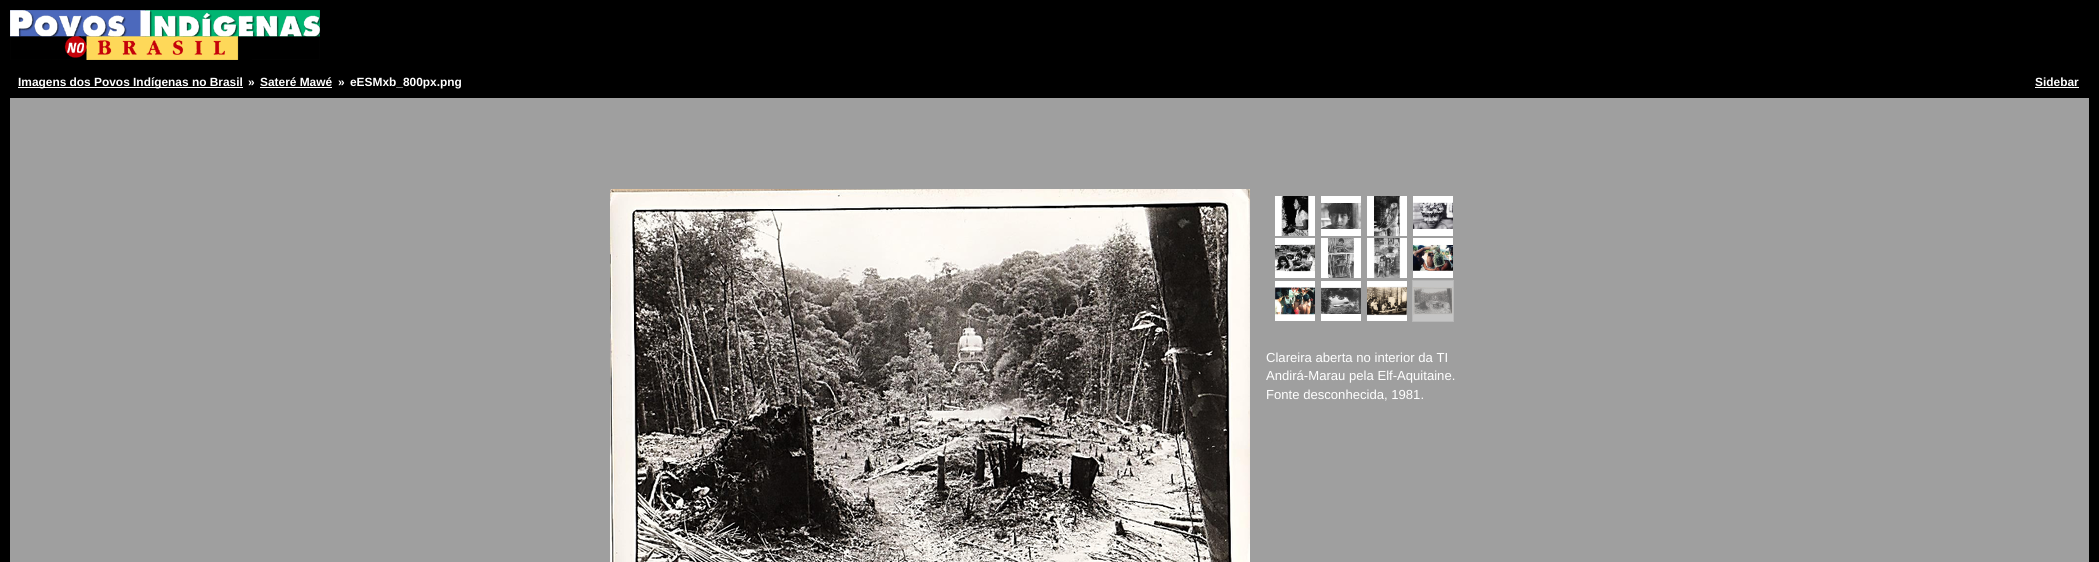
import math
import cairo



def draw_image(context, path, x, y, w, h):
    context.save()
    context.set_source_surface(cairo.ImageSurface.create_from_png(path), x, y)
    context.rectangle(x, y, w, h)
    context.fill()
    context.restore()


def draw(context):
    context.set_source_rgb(0, 0, 0)
    context.paint()
    draw_image(context, "images/1.png", 10, 10, 310, 50)
    context.set_source_rgb(1, 1, 1)
    context.rectangle(18, 87, 225, 1)
    context.fill()
    context.rectangle(260, 87, 72, 1)
    context.fill()
    context.rectangle(2035, 87, 44, 1)
    context.fill()
    context.set_source_rgb(159 / 255, 159 / 255, 159 / 255)
    context.rectangle(10, 98, 2079, 464)
    context.fill()
    draw_image(context, "images/2.png", 610, 189, 640, 373)
    draw_image(context, "images/3.png", 1275, 196, 40, 40)
    draw_image(context, "images/4.png", 1321, 196, 40, 40)
    draw_image(context, "images/5.png", 1367, 196, 40, 40)
    draw_image(context, "images/6.png", 1413, 196, 40, 40)
    draw_image(context, "images/7.png", 1275, 238, 40, 40)
    draw_image(context, "images/8.png", 1321, 238, 40, 40)
    draw_image(context, "images/9.png", 1367, 238, 40, 40)
    draw_image(context, "images/10.png", 1413, 238, 40, 40)
    draw_image(context, "images/11.png", 1275, 281, 40, 40)
    draw_image(context, "images/12.png", 1321, 281, 40, 40)
    draw_image(context, "images/13.png", 1367, 281, 40, 40)
    context.rectangle(1412.5, 280.5, 41, 41)
    context.set_source_rgb(184 / 255, 184 / 255, 184 / 255)
    context.set_line_width(1)
    context.stroke()
    draw_image(context, "images/14.png", 1413, 281, 40, 40)
    context.select_font_face("Liberation Sans", cairo.FontSlant.NORMAL, cairo.FontWeight.BOLD)
    context.set_font_size(11.9)
    context.set_source_rgb(1, 1, 1)
    context.move_to(18, 86)
    context.show_text("Imagens dos Povos Indígenas no Brasil")
    context.move_to(248, 86)
    context.show_text("»")
    context.move_to(260, 86)
    context.show_text("Sateré Mawé")
    context.move_to(338, 86)
    context.show_text("»")
    context.move_to(350, 86)
    context.show_text("eESMxb_800px.png")
    context.move_to(2035, 86)
    context.show_text("Sidebar")
    context.select_font_face("Liberation Sans")
    context.set_font_size(13.1)
    context.move_to(1266, 362)
    context.show_text("Clareira aberta no interior da TI")
    context.move_to(1266, 380)
    context.show_text("Andirá-Marau pela Elf-Aquitaine.")
    context.move_to(1266, 399)
    context.show_text("Fonte desconhecida, 1981.")


surface = cairo.ImageSurface(cairo.Format.RGB24, 2099, 562)
context = cairo.Context(surface)
options = cairo.FontOptions()
options.set_hint_metrics(cairo.HintMetrics.OFF)
options.set_hint_style(cairo.HintStyle.NONE)
context.set_font_options(options)
context.set_miter_limit(4)
draw(context)
surface.write_to_png("out.png")
